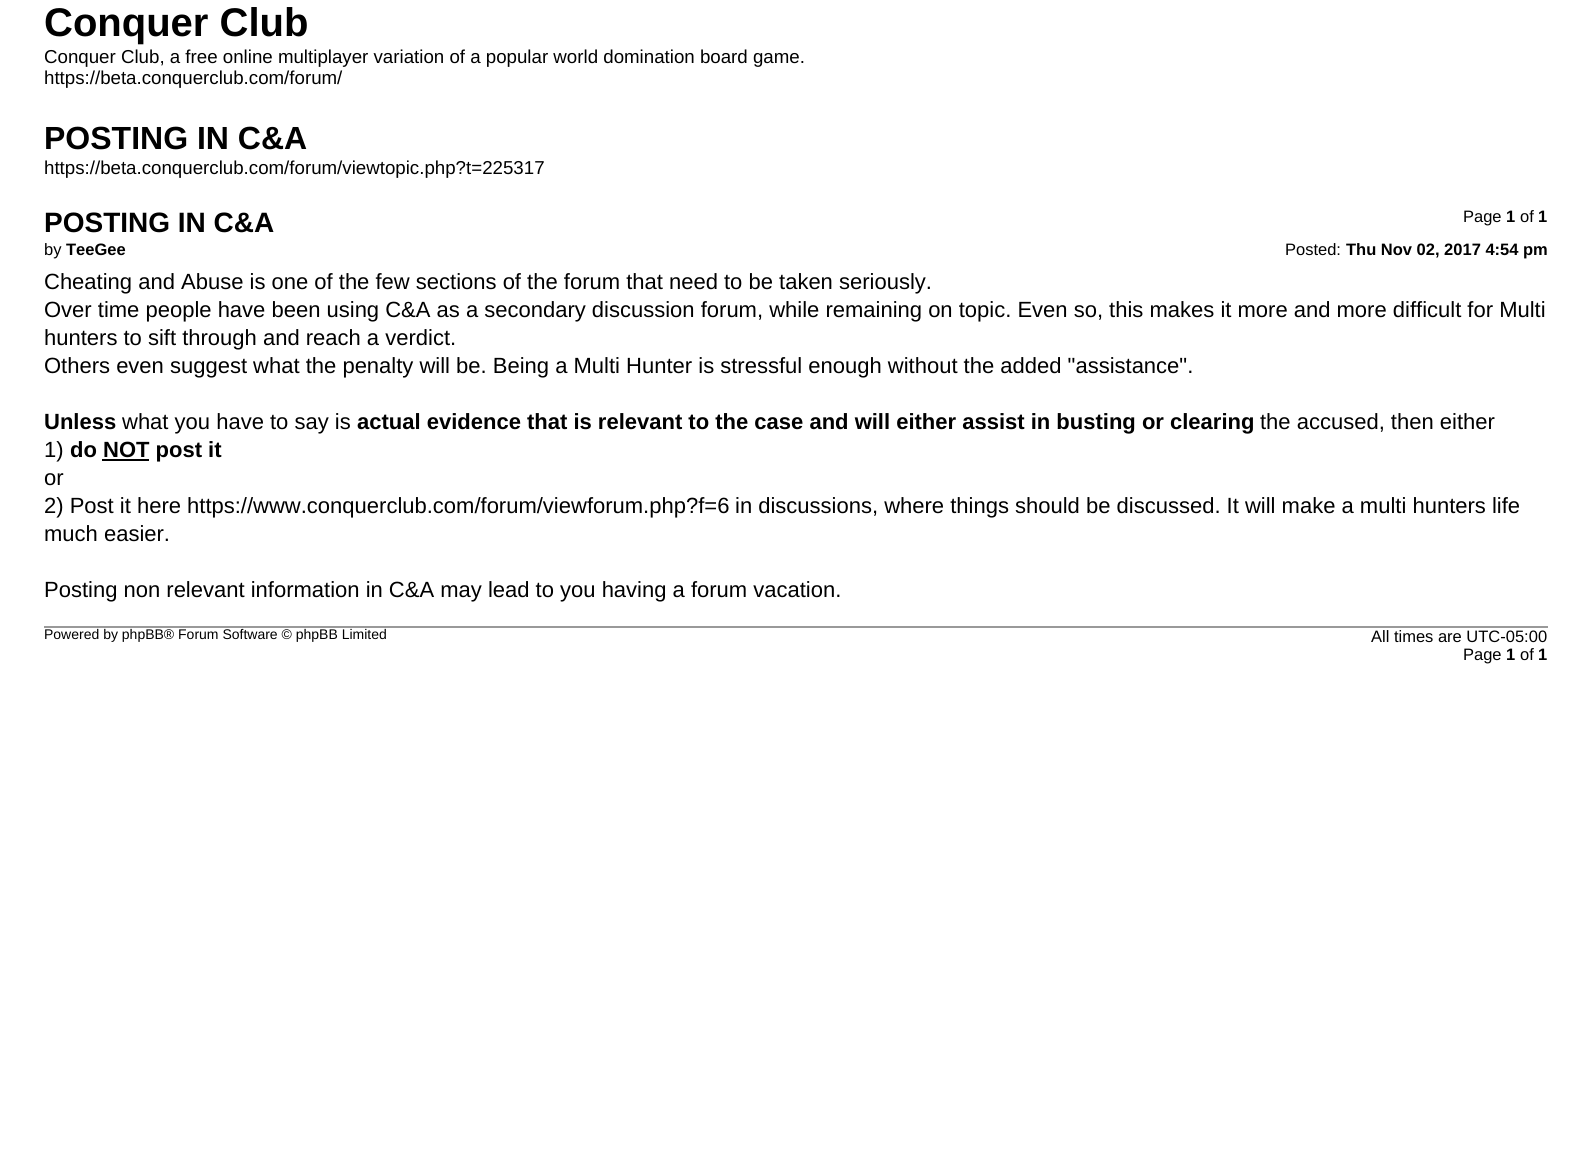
import math
import cairo



def draw(context):
    context.set_source_rgb(1, 1, 1)
    context.paint()
    context.set_source_rgb(0, 0, 0)
    context.rectangle(102, 459, 47, 2)
    context.fill()
    context.set_source_rgb(153 / 255, 153 / 255, 153 / 255)
    context.rectangle(44, 626, 1504, 2)
    context.fill()
    context.select_font_face("Liberation Sans", cairo.FontSlant.NORMAL, cairo.FontWeight.BOLD)
    context.set_font_size(40)
    context.set_source_rgb(0, 0, 0)
    context.move_to(44, 36)
    context.show_text("Conquer Club")
    context.select_font_face("Liberation Sans")
    context.set_font_size(18.7)
    context.move_to(44, 63)
    context.show_text("Conquer Club, a free online multiplayer variation of a popular world domination board game.")
    context.move_to(44, 84)
    context.show_text("https://beta.conquerclub.com/forum/")
    context.select_font_face("Liberation Sans", cairo.FontSlant.NORMAL, cairo.FontWeight.BOLD)
    context.set_font_size(32)
    context.move_to(44, 149)
    context.show_text("POSTING IN C&A")
    context.select_font_face("Liberation Sans")
    context.set_font_size(18.7)
    context.move_to(44, 174)
    context.show_text("https://beta.conquerclub.com/forum/viewtopic.php?t=225317")
    context.set_font_size(16.5)
    context.move_to(1463, 222)
    context.show_text("Page")
    context.select_font_face("Liberation Sans", cairo.FontSlant.NORMAL, cairo.FontWeight.BOLD)
    context.move_to(1506, 222)
    context.show_text("1")
    context.select_font_face("Liberation Sans")
    context.move_to(1520, 222)
    context.show_text("of")
    context.select_font_face("Liberation Sans", cairo.FontSlant.NORMAL, cairo.FontWeight.BOLD)
    context.move_to(1538, 222)
    context.show_text("1")
    context.set_font_size(28)
    context.move_to(44, 232)
    context.show_text("POSTING IN C&A")
    context.select_font_face("Liberation Sans")
    context.set_font_size(16.5)
    context.move_to(44, 255)
    context.show_text("by")
    context.select_font_face("Liberation Sans", cairo.FontSlant.NORMAL, cairo.FontWeight.BOLD)
    context.move_to(66, 255)
    context.show_text("TeeGee")
    context.select_font_face("Liberation Sans")
    context.move_to(1285, 255)
    context.show_text("Posted:")
    context.select_font_face("Liberation Sans", cairo.FontSlant.NORMAL, cairo.FontWeight.BOLD)
    context.move_to(1346, 255)
    context.show_text("Thu Nov 02, 2017 4:54 pm")
    context.select_font_face("Liberation Sans")
    context.set_font_size(22)
    context.move_to(44, 289)
    context.show_text("Cheating and Abuse is one of the few sections of the forum that need to be taken seriously.")
    context.move_to(44, 317)
    context.show_text("Over time people have been using C&A as a secondary discussion forum, while remaining on topic. Even so, this makes it more and more difficult for Multi")
    context.move_to(44, 345)
    context.show_text("hunters to sift through and reach a verdict.")
    context.move_to(44, 373)
    context.show_text("Others even suggest what the penalty will be. Being a Multi Hunter is stressful enough without the added \"assistance\".")
    context.select_font_face("Liberation Sans", cairo.FontSlant.NORMAL, cairo.FontWeight.BOLD)
    context.move_to(44, 429)
    context.show_text("Unless")
    context.select_font_face("Liberation Sans")
    context.move_to(122, 429)
    context.show_text("what you have to say is")
    context.select_font_face("Liberation Sans", cairo.FontSlant.NORMAL, cairo.FontWeight.BOLD)
    context.move_to(357, 429)
    context.show_text("actual evidence that is relevant to the case and will either assist in busting or clearing")
    context.select_font_face("Liberation Sans")
    context.move_to(1260, 429)
    context.show_text("the accused, then either")
    context.move_to(44, 457)
    context.show_text("1)")
    context.select_font_face("Liberation Sans", cairo.FontSlant.NORMAL, cairo.FontWeight.BOLD)
    context.move_to(70, 457)
    context.show_text("do NOT post it")
    context.select_font_face("Liberation Sans")
    context.move_to(44, 485)
    context.show_text("or")
    context.move_to(44, 513)
    context.show_text("2) Post it here https://www.conquerclub.com/forum/viewforum.php?f=6")
    context.move_to(735, 513)
    context.show_text("in discussions, where things should be discussed. It will make a multi hunters life")
    context.move_to(44, 541)
    context.show_text("much easier.")
    context.move_to(44, 597)
    context.show_text("Posting non relevant information in C&A may lead to you having a forum vacation.")
    context.set_font_size(14)
    context.move_to(44, 639)
    context.show_text("Powered by phpBB® Forum Software © phpBB Limited")
    context.set_font_size(16.5)
    context.move_to(1371, 642)
    context.show_text("All times are UTC-05:00")
    context.move_to(1463, 660)
    context.show_text("Page")
    context.select_font_face("Liberation Sans", cairo.FontSlant.NORMAL, cairo.FontWeight.BOLD)
    context.move_to(1506, 660)
    context.show_text("1")
    context.select_font_face("Liberation Sans")
    context.move_to(1520, 660)
    context.show_text("of")
    context.select_font_face("Liberation Sans", cairo.FontSlant.NORMAL, cairo.FontWeight.BOLD)
    context.move_to(1538, 660)
    context.show_text("1")


surface = cairo.ImageSurface(cairo.Format.RGB24, 1591, 1172)
context = cairo.Context(surface)
options = cairo.FontOptions()
options.set_hint_metrics(cairo.HintMetrics.OFF)
options.set_hint_style(cairo.HintStyle.NONE)
context.set_font_options(options)
context.set_miter_limit(4)
draw(context)
surface.write_to_png("out.png")
